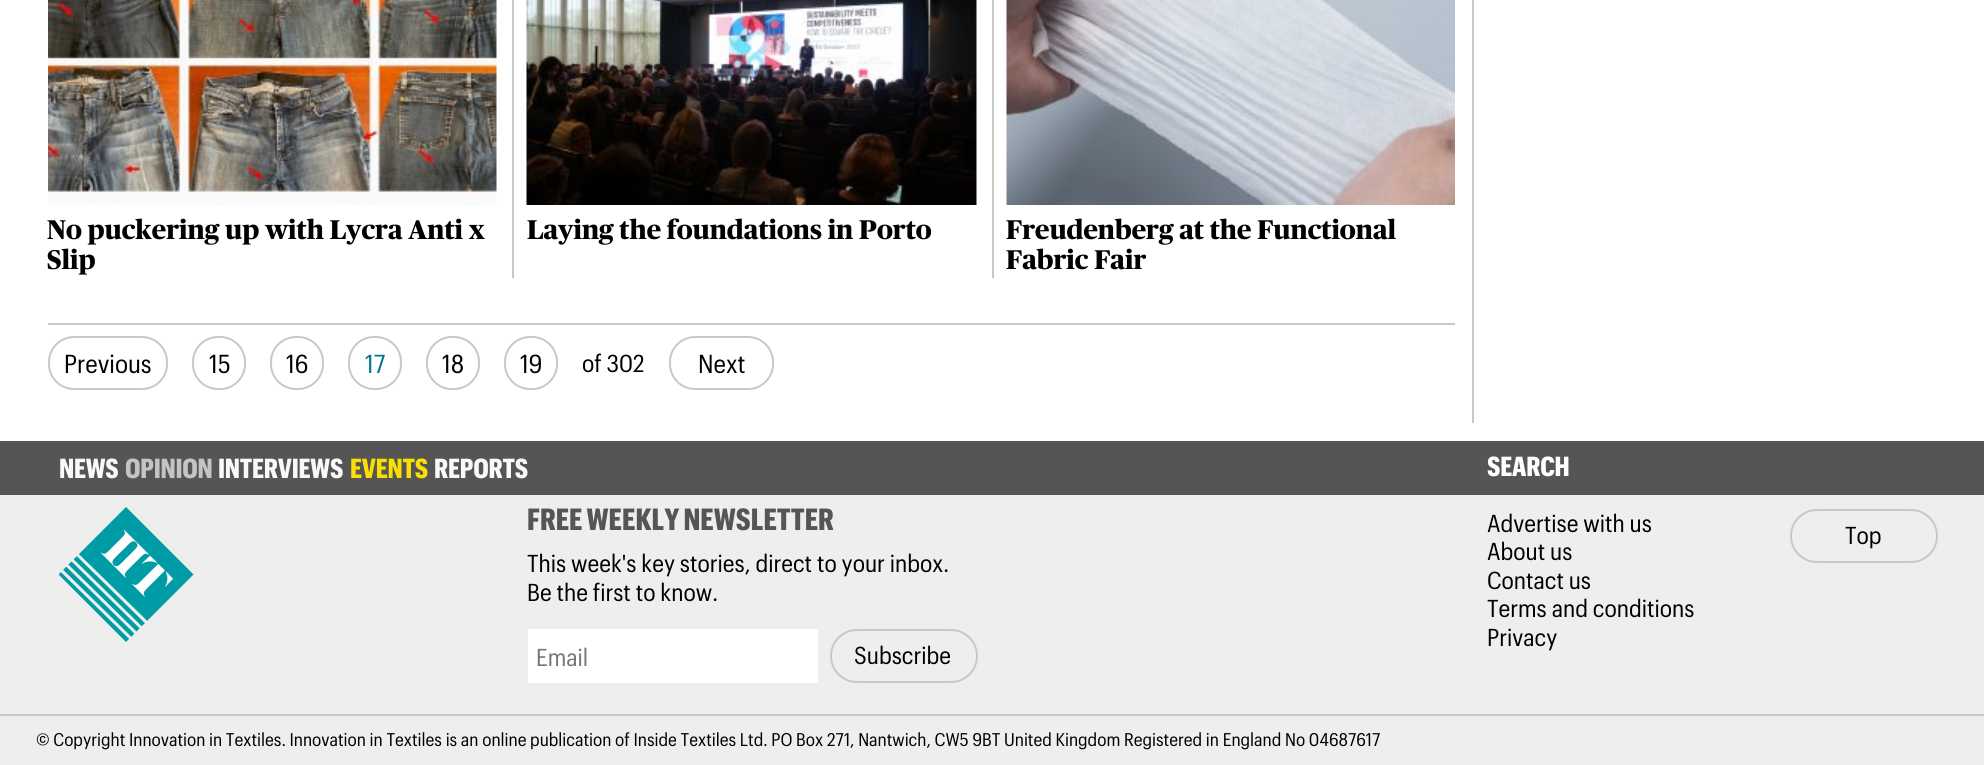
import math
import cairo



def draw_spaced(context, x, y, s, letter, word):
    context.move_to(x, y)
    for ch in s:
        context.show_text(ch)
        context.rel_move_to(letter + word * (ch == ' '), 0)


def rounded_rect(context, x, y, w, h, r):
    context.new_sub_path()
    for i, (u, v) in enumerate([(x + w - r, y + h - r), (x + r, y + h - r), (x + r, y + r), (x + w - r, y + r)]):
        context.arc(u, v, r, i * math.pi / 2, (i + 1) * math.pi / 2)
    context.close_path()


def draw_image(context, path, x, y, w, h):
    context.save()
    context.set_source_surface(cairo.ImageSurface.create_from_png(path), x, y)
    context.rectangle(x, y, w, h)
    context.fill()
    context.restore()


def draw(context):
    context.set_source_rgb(1, 1, 1)
    context.paint()
    context.set_source_rgb(200 / 255, 201 / 255, 199 / 255)
    context.rectangle(1472, 0, 2, 423)
    context.fill()
    context.rectangle(512, 0, 2, 278)
    context.fill()
    draw_image(context, "images/1.png", 48, 0, 449, 205)
    context.rectangle(992, 0, 2, 278)
    context.fill()
    draw_image(context, "images/2.png", 526, 0, 451, 205)
    draw_image(context, "images/3.png", 1006, 0, 449, 205)
    context.rectangle(48, 323, 1407, 2)
    context.fill()
    rounded_rect(context, 49, 337, 118, 52, 25)
    context.stroke()
    rounded_rect(context, 193, 337, 52, 52, 25)
    context.stroke()
    rounded_rect(context, 271, 337, 52, 52, 25)
    context.stroke()
    rounded_rect(context, 349, 337, 52, 52, 25)
    context.stroke()
    rounded_rect(context, 427, 337, 52, 52, 25)
    context.stroke()
    rounded_rect(context, 505, 337, 52, 52, 25)
    context.stroke()
    rounded_rect(context, 670, 337, 103, 52, 25)
    context.stroke()
    context.set_source_rgb(238 / 255, 238 / 255, 238 / 255)
    context.rectangle(0, 495, 1984, 270)
    context.fill()
    context.set_source_rgb(85 / 255, 85 / 255, 85 / 255)
    context.rectangle(0, 441, 1984, 54)
    context.fill()
    draw_image(context, "images/4.png", 59, 507, 135, 135)
    context.set_source_rgb(1, 1, 1)
    context.rectangle(528, 629, 290, 54)
    context.fill()
    rounded_rect(context, 831, 630, 146, 52, 26)
    context.set_source_rgb(200 / 255, 201 / 255, 199 / 255)
    context.stroke()
    rounded_rect(context, 1791, 510, 146, 52, 26)
    context.stroke()
    context.rectangle(0, 714, 1984, 2)
    context.fill()
    context.select_font_face("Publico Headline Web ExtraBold")
    context.set_font_size(27)
    context.set_source_rgb(0, 0, 0)
    context.move_to(47, 239)
    context.show_text("No puckering up with Lycra Anti x")
    context.move_to(47, 269)
    context.show_text("Slip")
    context.move_to(527, 239)
    context.show_text("Laying the foundations in Porto")
    context.move_to(1006, 239)
    context.show_text("Freudenberg at the Functional")
    context.move_to(1006, 269)
    context.show_text("Fabric Fair")
    context.select_font_face("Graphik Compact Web")
    context.set_font_size(25.5)
    context.move_to(64, 373)
    context.show_text("Previous")
    context.move_to(209, 373)
    context.show_text("15")
    context.move_to(286, 373)
    context.show_text("16")
    context.set_source_rgb(0, 115 / 255, 150 / 255)
    context.move_to(365, 373)
    context.show_text("17")
    context.set_source_rgb(0, 0, 0)
    context.move_to(442, 373)
    context.show_text("18")
    context.move_to(520, 373)
    context.show_text("19")
    context.set_font_size(24)
    context.move_to(582, 372)
    context.show_text("of 302")
    context.set_font_size(25.5)
    context.move_to(698, 373)
    context.show_text("Next")
    context.select_font_face("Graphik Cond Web", cairo.FontSlant.NORMAL, cairo.FontWeight.BOLD)
    context.set_font_size(27)
    context.set_source_rgb(249 / 255, 249 / 255, 249 / 255)
    draw_spaced(context, 59, 478, "NEWS", -0.25, 0)
    context.set_source_rgb(197 / 255, 196 / 255, 197 / 255)
    draw_spaced(context, 125, 478, "OPINION", -0.25, 0)
    context.set_source_rgb(249 / 255, 249 / 255, 249 / 255)
    draw_spaced(context, 218, 478, "INTERVIEWS", -0.25, 0)
    context.set_source_rgb(250 / 255, 224 / 255, 0)
    draw_spaced(context, 350, 478, "EVENTS", -0.25, 0)
    context.set_source_rgb(249 / 255, 249 / 255, 249 / 255)
    draw_spaced(context, 434, 478, "REPORTS", -0.25, 0)
    context.set_source_rgb(1, 1, 1)
    draw_spaced(context, 1487, 476, "SEARCH", -0.25, 0)
    context.set_font_size(30)
    context.set_source_rgb(85 / 255, 85 / 255, 85 / 255)
    context.move_to(527, 530)
    context.show_text("FREE WEEKLY NEWSLETTER")
    context.select_font_face("Graphik Compact Web")
    context.set_font_size(24)
    context.set_source_rgb(0, 0, 0)
    context.move_to(527, 572)
    context.show_text("This week's key stories, direct to your inbox.")
    context.move_to(527, 601)
    context.show_text("Be the first to know.")
    context.set_source_rgb(117 / 255, 117 / 255, 117 / 255)
    context.move_to(536, 666)
    context.show_text("Email")
    context.set_source_rgb(0, 0, 0)
    context.move_to(854, 664)
    context.show_text("Subscribe")
    context.move_to(1487, 532)
    context.show_text("Advertise with us")
    context.move_to(1487, 560)
    context.show_text("About us")
    context.move_to(1487, 589)
    context.show_text("Contact us")
    context.move_to(1487, 617)
    context.show_text("Terms and conditions")
    context.move_to(1487, 646)
    context.show_text("Privacy")
    context.move_to(1845, 544)
    context.show_text("Top")
    context.set_font_size(18)
    context.move_to(36, 746)
    context.show_text("© Copyright Innovation in Textiles. Innovation in Textiles is an online publication of Inside Textiles Ltd. PO Box 271, Nantwich, CW5 9BT United Kingdom Registered in England No 04687617")


surface = cairo.ImageSurface(cairo.Format.RGB24, 1984, 765)
context = cairo.Context(surface)
options = cairo.FontOptions()
options.set_hint_metrics(cairo.HintMetrics.OFF)
options.set_hint_style(cairo.HintStyle.NONE)
context.set_font_options(options)
context.set_miter_limit(4)
draw(context)
surface.write_to_png("out.png")
